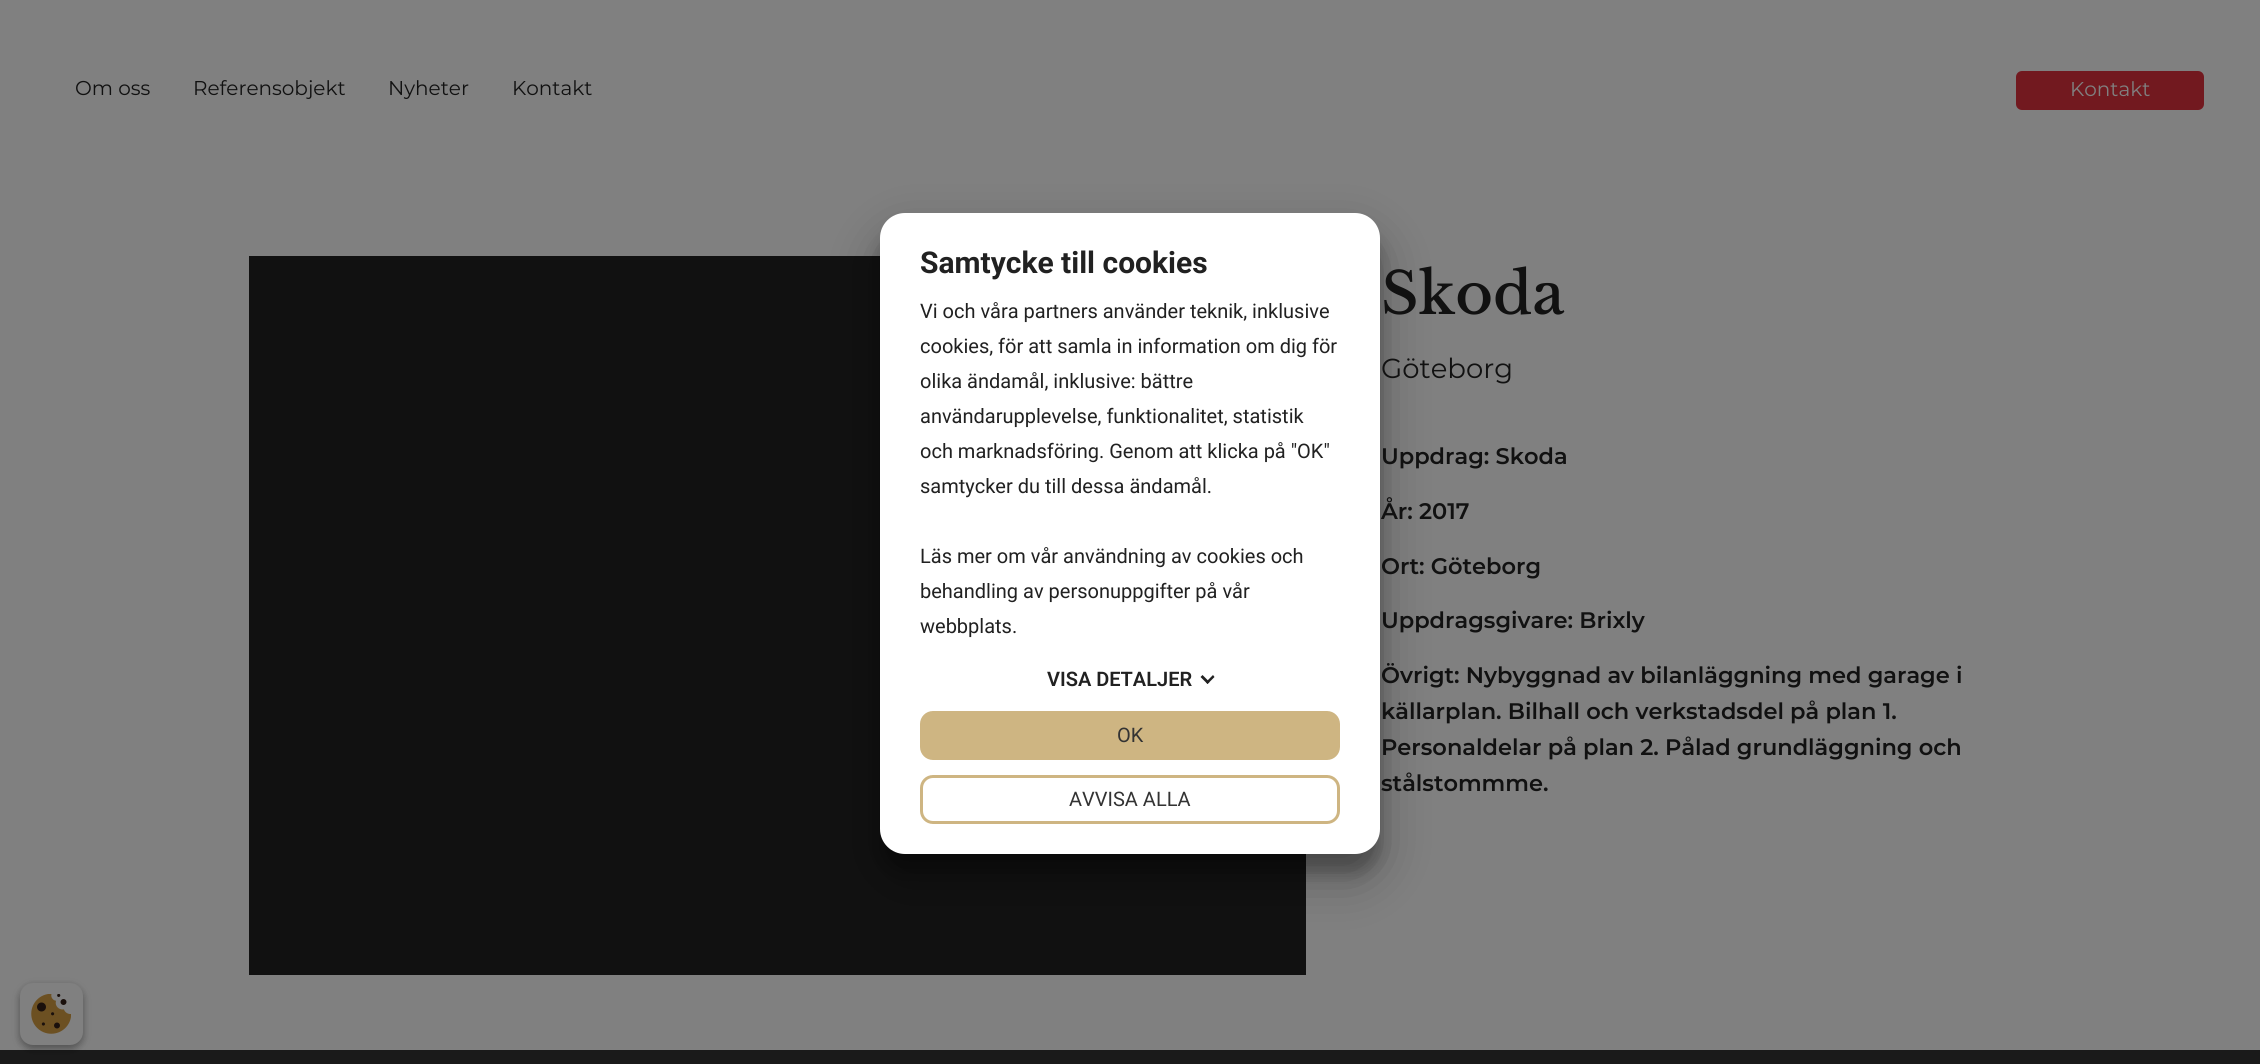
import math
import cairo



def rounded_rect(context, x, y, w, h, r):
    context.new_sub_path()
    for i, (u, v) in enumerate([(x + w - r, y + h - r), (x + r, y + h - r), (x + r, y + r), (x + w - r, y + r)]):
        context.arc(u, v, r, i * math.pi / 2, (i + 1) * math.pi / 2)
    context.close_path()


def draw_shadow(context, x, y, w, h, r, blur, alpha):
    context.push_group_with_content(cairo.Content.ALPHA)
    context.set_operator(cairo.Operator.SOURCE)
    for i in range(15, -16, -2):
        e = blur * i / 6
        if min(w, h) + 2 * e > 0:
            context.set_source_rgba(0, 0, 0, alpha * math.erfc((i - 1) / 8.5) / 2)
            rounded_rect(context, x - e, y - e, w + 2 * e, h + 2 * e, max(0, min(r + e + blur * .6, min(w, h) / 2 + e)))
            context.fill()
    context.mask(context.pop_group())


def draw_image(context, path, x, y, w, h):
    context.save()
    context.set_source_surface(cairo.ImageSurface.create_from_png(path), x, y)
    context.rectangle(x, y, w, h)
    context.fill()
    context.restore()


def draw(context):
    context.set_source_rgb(128 / 255, 128 / 255, 128 / 255)
    context.paint()
    context.set_source_rgb(114 / 255, 25 / 255, 31 / 255)
    rounded_rect(context, 2016, 71, 188, 39, 6)
    context.fill()
    context.set_source_rgb(17 / 255, 17 / 255, 17 / 255)
    context.rectangle(249, 256, 1057, 719)
    context.fill()
    context.set_source_rgb(26 / 255, 26 / 255, 26 / 255)
    context.rectangle(0, 1050, 2260, 14)
    context.fill()
    context.set_source_rgb(0, 0, 0)
    draw_shadow(context, 880, 231, 500, 642, 25, 7.5, 0.22)
    draw_shadow(context, 880, 236, 500, 642, 25, 24, 0.3)
    context.set_source_rgb(1, 1, 1)
    rounded_rect(context, 880, 213, 500, 641, 25)
    context.fill()
    context.set_source_rgb(33 / 255, 33 / 255, 33 / 255)
    context.new_path()
    context.move_to(1213, 675)
    context.line_to(1214.5, 677)
    context.line_to(1207.5, 684)
    context.line_to(1206, 682)
    context.close_path()
    context.fill()
    context.new_path()
    context.move_to(1202.5, 675)
    context.line_to(1209.5, 682)
    context.line_to(1207.5, 684)
    context.line_to(1200.5, 677)
    context.close_path()
    context.fill()
    context.set_source_rgb(206 / 255, 181 / 255, 130 / 255)
    rounded_rect(context, 921.5, 712.5, 417, 46, 11.5)
    context.fill_preserve()
    context.set_line_width(3)
    context.stroke()
    rounded_rect(context, 921.5, 776.5, 417, 46, 11.5)
    context.stroke()
    context.set_source_rgb(0, 0, 0)
    draw_shadow(context, 20, 986, 63, 63, 13, 4, 0.23)
    draw_shadow(context, 20, 986, 63, 63, 13, 4, 0.16)
    context.set_source_rgb(128 / 255, 128 / 255, 128 / 255)
    rounded_rect(context, 20, 983, 63, 62, 13)
    context.fill()
    draw_image(context, "images/1.png", 31, 994, 40, 40)
    context.select_font_face("Montserrat")
    context.set_font_size(20)
    context.set_source_rgb(17 / 255, 17 / 255, 17 / 255)
    context.move_to(75, 95)
    context.show_text("Om oss")
    context.move_to(193, 95)
    context.show_text("Referensobjekt")
    context.move_to(388, 95)
    context.show_text("Nyheter")
    context.move_to(512, 95)
    context.show_text("Kontakt")
    context.set_source_rgb(128 / 255, 128 / 255, 128 / 255)
    context.move_to(2070, 96)
    context.show_text("Kontakt")
    context.select_font_face("Libre Baskerville Medium")
    context.set_font_size(57.5)
    context.set_source_rgb(17 / 255, 17 / 255, 17 / 255)
    context.move_to(1381, 314)
    context.show_text("Skoda")
    context.select_font_face("Montserrat")
    context.set_font_size(27.5)
    context.move_to(1381, 378)
    context.show_text("Göteborg")
    context.select_font_face("Montserrat SemiBold")
    context.set_font_size(22.5)
    context.move_to(1381, 464)
    context.show_text("Uppdrag: Skoda")
    context.move_to(1381, 519)
    context.show_text("År: 2017")
    context.move_to(1381, 574)
    context.show_text("Ort: Göteborg")
    context.move_to(1381, 628)
    context.show_text("Uppdragsgivare: Brixly")
    context.move_to(1381, 683)
    context.show_text("Övrigt: Nybyggnad av bilanläggning med garage i")
    context.move_to(1381, 719)
    context.show_text("källarplan. Bilhall och verkstadsdel på plan 1.")
    context.move_to(1381, 755)
    context.show_text("Personaldelar på plan 2. Pålad grundläggning och")
    context.move_to(1381, 791)
    context.show_text("stålstommme.")
    context.select_font_face("Roboto", cairo.FontSlant.NORMAL, cairo.FontWeight.BOLD)
    context.set_font_size(30)
    context.set_source_rgb(33 / 255, 33 / 255, 33 / 255)
    context.move_to(920, 273)
    context.show_text("Samtycke till cookies")
    context.select_font_face("Roboto")
    context.set_font_size(20)
    context.move_to(920, 318)
    context.show_text("Vi och våra partners använder teknik, inklusive")
    context.move_to(920, 353)
    context.show_text("cookies, för att samla in information om dig för")
    context.move_to(920, 388)
    context.show_text("olika ändamål, inklusive: bättre")
    context.move_to(920, 423)
    context.show_text("användarupplevelse, funktionalitet, statistik")
    context.move_to(920, 458)
    context.show_text("och marknadsföring. Genom att klicka på \"OK\"")
    context.move_to(920, 493)
    context.show_text("samtycker du till dessa ändamål.")
    context.move_to(920, 563)
    context.show_text("Läs mer om vår användning av cookies och")
    context.move_to(920, 598)
    context.show_text("behandling av personuppgifter på vår")
    context.move_to(920, 633)
    context.show_text("webbplats.")
    context.select_font_face("Roboto SemiBold")
    context.move_to(1047, 686)
    context.show_text("VISA DETALJER")
    context.select_font_face("Roboto")
    context.set_source_rgb(51 / 255, 51 / 255, 51 / 255)
    context.move_to(1117, 742)
    context.show_text("OK")
    context.move_to(1069, 806)
    context.show_text("AVVISA ALLA")


surface = cairo.ImageSurface(cairo.Format.RGB24, 2260, 1064)
context = cairo.Context(surface)
options = cairo.FontOptions()
options.set_hint_metrics(cairo.HintMetrics.OFF)
options.set_hint_style(cairo.HintStyle.NONE)
context.set_font_options(options)
context.set_miter_limit(4)
draw(context)
surface.write_to_png("out.png")
